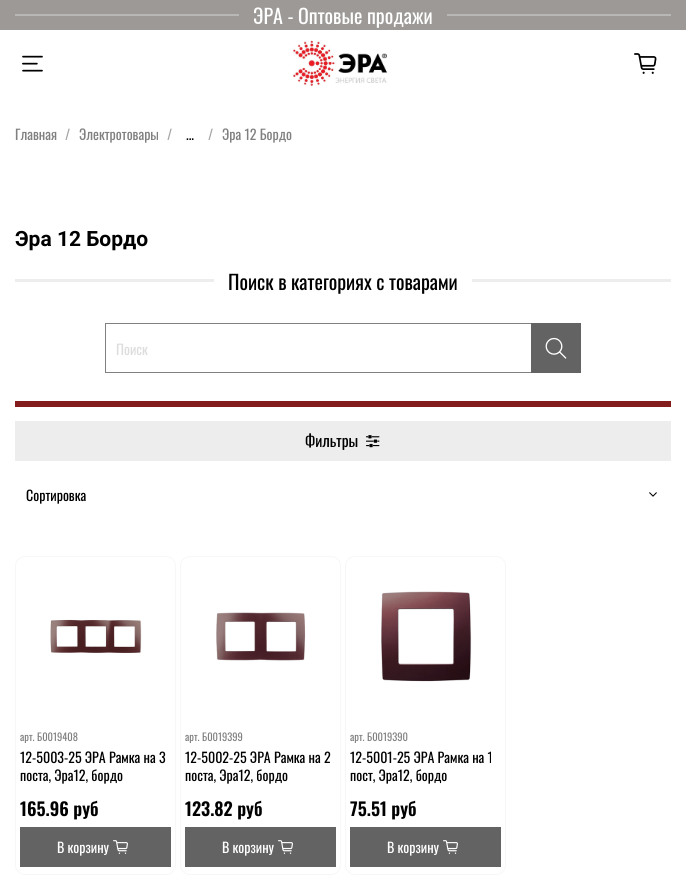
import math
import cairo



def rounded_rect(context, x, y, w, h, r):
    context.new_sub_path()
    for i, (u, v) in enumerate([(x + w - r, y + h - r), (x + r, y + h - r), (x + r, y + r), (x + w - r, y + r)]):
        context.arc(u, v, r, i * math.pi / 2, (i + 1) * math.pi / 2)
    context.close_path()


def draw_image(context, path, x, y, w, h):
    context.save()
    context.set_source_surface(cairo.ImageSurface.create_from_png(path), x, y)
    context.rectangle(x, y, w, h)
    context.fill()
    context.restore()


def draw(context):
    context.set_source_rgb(1, 1, 1)
    context.paint()
    context.set_source_rgb(156 / 255, 153 / 255, 151 / 255)
    context.rectangle(0, 0, 686, 30)
    context.fill()
    context.set_source_rgb(185 / 255, 183 / 255, 182 / 255)
    context.rectangle(15, 14, 224, 2)
    context.fill()
    context.rectangle(447, 14, 224, 2)
    context.fill()
    draw_image(context, "images/1.png", 22, 55, 21, 17)
    draw_image(context, "images/2.png", 292, 40, 96, 46)
    draw_image(context, "images/3.png", 634, 53, 23, 21)
    context.set_source_rgb(237 / 255, 237 / 255, 237 / 255)
    context.rectangle(15, 279, 199, 3)
    context.fill()
    context.rectangle(472, 279, 199, 3)
    context.fill()
    context.set_source_rgb(128 / 255, 128 / 255, 128 / 255)
    context.rectangle(105, 323, 426, 1)
    context.fill()
    context.rectangle(105, 372, 426, 1)
    context.fill()
    context.rectangle(105, 323, 1, 50)
    context.fill()
    context.set_source_rgb(99 / 255, 99 / 255, 99 / 255)
    context.rectangle(531, 323, 50, 50)
    context.fill()
    draw_image(context, "images/4.png", 545, 337, 22, 22)
    context.set_source_rgb(131 / 255, 29 / 255, 29 / 255)
    context.rectangle(15, 401, 656, 6)
    context.fill()
    context.set_source_rgb(237 / 255, 237 / 255, 237 / 255)
    context.rectangle(15, 421, 656, 40)
    context.fill()
    draw_image(context, "images/5.png", 366, 435, 14, 13)
    draw_image(context, "images/6.png", 649, 492, 8, 5)
    rounded_rect(context, 15.5, 556.5, 160, 318, 9.5)
    context.set_source_rgb(247 / 255, 247 / 255, 247 / 255)
    context.set_line_width(1)
    context.stroke()
    draw_image(context, "images/7.png", 50, 619, 92, 34)
    context.set_source_rgb(99 / 255, 99 / 255, 99 / 255)
    context.rectangle(20, 827, 151, 40)
    context.fill()
    draw_image(context, "images/8.png", 113, 840, 15, 14)
    rounded_rect(context, 180.5, 556.5, 160, 318, 9.5)
    context.set_source_rgb(247 / 255, 247 / 255, 247 / 255)
    context.stroke()
    draw_image(context, "images/9.png", 216, 612, 90, 49)
    context.set_source_rgb(99 / 255, 99 / 255, 99 / 255)
    context.rectangle(185, 827, 151, 40)
    context.fill()
    draw_image(context, "images/8.png", 278, 840, 15, 14)
    rounded_rect(context, 345.5, 556.5, 160, 318, 9.5)
    context.set_source_rgb(247 / 255, 247 / 255, 247 / 255)
    context.stroke()
    draw_image(context, "images/10.png", 381, 591, 91, 91)
    context.set_source_rgb(99 / 255, 99 / 255, 99 / 255)
    context.rectangle(350, 827, 151, 40)
    context.fill()
    draw_image(context, "images/8.png", 443, 840, 15, 14)
    context.select_font_face("Oswald")
    context.set_font_size(20)
    context.set_source_rgb(1, 1, 1)
    context.move_to(253, 24)
    context.show_text("ЭРА - Оптовые продажи")
    context.set_font_size(14)
    context.set_source_rgb(128 / 255, 128 / 255, 128 / 255)
    context.move_to(15, 140)
    context.show_text("Главная")
    context.set_source_rgb(166 / 255, 166 / 255, 166 / 255)
    context.move_to(65, 140)
    context.show_text("/")
    context.set_source_rgb(128 / 255, 128 / 255, 128 / 255)
    context.move_to(79, 140)
    context.show_text("Электротовары")
    context.set_source_rgb(166 / 255, 166 / 255, 166 / 255)
    context.move_to(167, 140)
    context.show_text("/")
    context.set_source_rgb(0, 0, 0)
    context.move_to(186, 140)
    context.show_text("...")
    context.set_source_rgb(166 / 255, 166 / 255, 166 / 255)
    context.move_to(208, 140)
    context.show_text("/")
    context.set_source_rgb(128 / 255, 128 / 255, 128 / 255)
    context.move_to(222, 140)
    context.show_text("Эра 12 Бордо")
    context.select_font_face("Roboto", cairo.FontSlant.NORMAL, cairo.FontWeight.BOLD)
    context.set_font_size(21)
    context.set_source_rgb(0, 0, 0)
    context.move_to(15, 246)
    context.show_text("Эра 12 Бордо")
    context.select_font_face("Oswald")
    context.set_font_size(20)
    context.move_to(228, 290)
    context.show_text("Поиск в категориях с товарами")
    context.set_font_size(14)
    context.set_source_rgb(221 / 255, 221 / 255, 221 / 255)
    context.move_to(116, 355)
    context.show_text("Поиск")
    context.set_font_size(15.5)
    context.set_source_rgb(0, 0, 0)
    context.move_to(305, 447)
    context.show_text("Фильтры")
    context.set_font_size(14)
    context.move_to(26, 501)
    context.show_text("Сортировка")
    context.set_font_size(10.5)
    context.set_source_rgb(128 / 255, 128 / 255, 128 / 255)
    context.move_to(20, 741)
    context.show_text("арт. Б0019408")
    context.set_font_size(14)
    context.set_source_rgb(0, 0, 0)
    context.move_to(20, 763)
    context.show_text("12-5003-25 ЭРА Рамка на 3")
    context.move_to(20, 781)
    context.show_text("поста, Эра12, бордо")
    context.select_font_face("Oswald SemiBold")
    context.set_font_size(18)
    context.move_to(20, 816)
    context.show_text("165.96 руб")
    context.select_font_face("Oswald")
    context.set_font_size(14)
    context.set_source_rgb(1, 1, 1)
    context.move_to(57, 853)
    context.show_text("В корзину")
    context.set_font_size(10.5)
    context.set_source_rgb(128 / 255, 128 / 255, 128 / 255)
    context.move_to(185, 741)
    context.show_text("арт. Б0019399")
    context.set_font_size(14)
    context.set_source_rgb(0, 0, 0)
    context.move_to(185, 763)
    context.show_text("12-5002-25 ЭРА Рамка на 2")
    context.move_to(185, 781)
    context.show_text("поста, Эра12, бордо")
    context.select_font_face("Oswald SemiBold")
    context.set_font_size(18)
    context.move_to(185, 816)
    context.show_text("123.82 руб")
    context.select_font_face("Oswald")
    context.set_font_size(14)
    context.set_source_rgb(1, 1, 1)
    context.move_to(222, 853)
    context.show_text("В корзину")
    context.set_font_size(10.5)
    context.set_source_rgb(128 / 255, 128 / 255, 128 / 255)
    context.move_to(350, 741)
    context.show_text("арт. Б0019390")
    context.set_font_size(14)
    context.set_source_rgb(0, 0, 0)
    context.move_to(350, 763)
    context.show_text("12-5001-25 ЭРА Рамка на 1")
    context.move_to(350, 781)
    context.show_text("пост, Эра12, бордо")
    context.select_font_face("Oswald SemiBold")
    context.set_font_size(18)
    context.move_to(350, 816)
    context.show_text("75.51 руб")
    context.select_font_face("Oswald")
    context.set_font_size(14)
    context.set_source_rgb(1, 1, 1)
    context.move_to(387, 853)
    context.show_text("В корзину")


surface = cairo.ImageSurface(cairo.Format.RGB24, 686, 890)
context = cairo.Context(surface)
options = cairo.FontOptions()
options.set_hint_metrics(cairo.HintMetrics.OFF)
options.set_hint_style(cairo.HintStyle.NONE)
context.set_font_options(options)
context.set_miter_limit(4)
draw(context)
surface.write_to_png("out.png")
